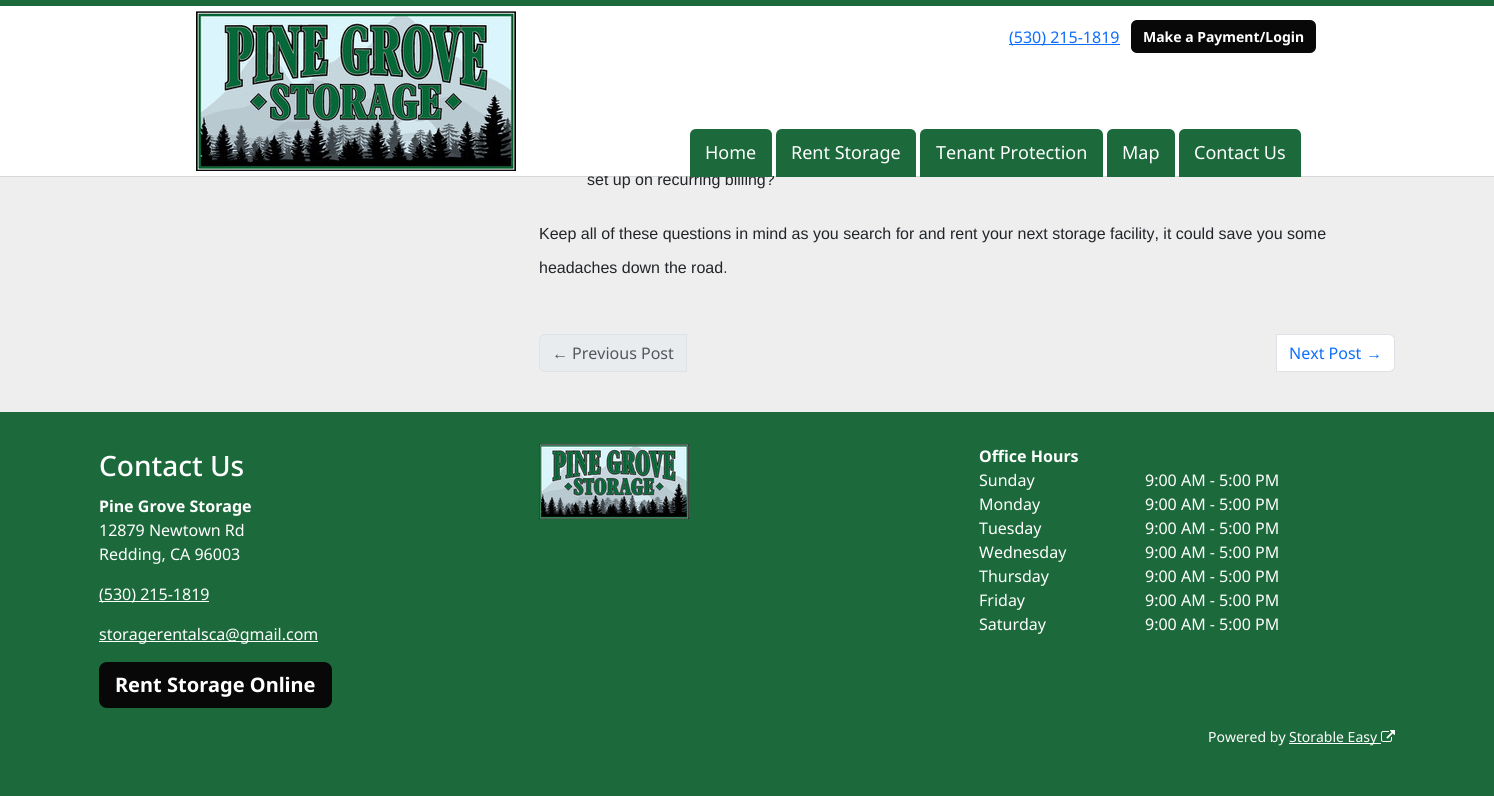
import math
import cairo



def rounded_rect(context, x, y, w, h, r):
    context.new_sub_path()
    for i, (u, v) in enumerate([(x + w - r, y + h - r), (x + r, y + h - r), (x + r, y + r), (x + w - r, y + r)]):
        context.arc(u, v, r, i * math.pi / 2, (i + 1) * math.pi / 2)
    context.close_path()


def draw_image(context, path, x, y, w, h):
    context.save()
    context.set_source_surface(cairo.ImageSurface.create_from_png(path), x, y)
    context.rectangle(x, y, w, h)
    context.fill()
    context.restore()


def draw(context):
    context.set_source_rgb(238 / 255, 238 / 255, 238 / 255)
    context.paint()
    context.set_source_rgba(0, 0, 0, 0.1)
    context.rectangle(0, 176, 1494, 1)
    context.fill()
    context.set_source_rgb(28 / 255, 106 / 255, 59 / 255)
    context.rectangle(0, 0, 1494, 6)
    context.fill()
    context.set_source_rgb(233 / 255, 236 / 255, 239 / 255)
    context.new_path()
    context.move_to(545, 334.5)
    context.line_to(686.5, 334.5)
    context.line_to(686.5, 371.5)
    context.line_to(545, 371.5)
    context.curve_to(542, 371.5, 539.5, 369, 539.5, 366)
    context.line_to(539.5, 340)
    context.curve_to(539.5, 337, 542, 334.5, 545, 334.5)
    context.close_path()
    context.fill_preserve()
    context.set_source_rgb(222 / 255, 226 / 255, 230 / 255)
    context.set_line_width(1)
    context.stroke()
    context.set_source_rgb(1, 1, 1)
    context.new_path()
    context.move_to(1276.5, 334.5)
    context.line_to(1389, 334.5)
    context.curve_to(1392, 334.5, 1394.5, 337, 1394.5, 340)
    context.line_to(1394.5, 366)
    context.curve_to(1394.5, 369, 1392, 371.5, 1389, 371.5)
    context.line_to(1276.5, 371.5)
    context.close_path()
    context.fill_preserve()
    context.set_source_rgb(222 / 255, 226 / 255, 230 / 255)
    context.stroke()
    context.set_source_rgb(28 / 255, 106 / 255, 59 / 255)
    context.rectangle(0, 412, 1494, 384)
    context.fill()
    context.set_source_rgb(1, 1, 1)
    context.rectangle(99, 601, 110, 1)
    context.fill()
    context.rectangle(99, 641, 219, 1)
    context.fill()
    draw_image(context, "images/2.png", 539, 444, 150, 75)
    context.set_source_rgb(8 / 255, 8 / 255, 8 / 255)
    rounded_rect(context, 99, 662, 233, 46, 8)
    context.fill()
    context.set_source_rgb(1, 1, 1)
    context.rectangle(1289, 743, 92, 1)
    context.fill()
    draw_image(context, "images/3.png", 1381, 730, 14, 12)
    context.select_font_face("Liberation Sans")
    context.set_font_size(16)
    context.set_source_rgb(33 / 255, 37 / 255, 41 / 255)
    context.move_to(587, 185)
    context.show_text("set up on recurring billing?")
    context.set_source_rgb(1, 1, 1)
    context.rectangle(0, 6, 1494, 170)
    context.fill()
    context.set_source_rgb(8 / 255, 8 / 255, 8 / 255)
    rounded_rect(context, 1131, 20, 185, 33, 6)
    context.fill()
    context.select_font_face("Noto Sans", cairo.FontSlant.NORMAL, cairo.FontWeight.BOLD)
    context.set_font_size(14)
    context.set_source_rgb(1, 1, 1)
    context.move_to(1143, 42)
    context.show_text("Make a Payment/Login")
    context.set_source_rgb(13 / 255, 110 / 255, 253 / 255)
    context.rectangle(1009, 44, 111, 1)
    context.fill()
    context.select_font_face("Noto Sans")
    context.set_font_size(16)
    context.move_to(1009, 43)
    context.show_text("(530) 215-1819")
    context.set_source_rgb(28 / 255, 106 / 255, 59 / 255)
    context.new_path()
    context.move_to(1185, 129)
    context.line_to(1295, 129)
    context.curve_to(1298.5, 129, 1301, 131.5, 1301, 135)
    context.line_to(1301, 177)
    context.line_to(1179, 177)
    context.line_to(1179, 135)
    context.curve_to(1179, 131.5, 1181.5, 129, 1185, 129)
    context.close_path()
    context.fill()
    context.set_font_size(18)
    context.set_source_rgb(1, 1, 1)
    context.move_to(1194, 159)
    context.show_text("Contact Us")
    context.set_source_rgb(28 / 255, 106 / 255, 59 / 255)
    context.new_path()
    context.move_to(1113, 129)
    context.line_to(1169, 129)
    context.curve_to(1172.5, 129, 1175, 131.5, 1175, 135)
    context.line_to(1175, 177)
    context.line_to(1107, 177)
    context.line_to(1107, 135)
    context.curve_to(1107, 131.5, 1109.5, 129, 1113, 129)
    context.close_path()
    context.fill()
    context.set_source_rgb(1, 1, 1)
    context.move_to(1122, 159)
    context.show_text("Map")
    context.set_source_rgb(28 / 255, 106 / 255, 59 / 255)
    context.new_path()
    context.move_to(926, 129)
    context.line_to(1097, 129)
    context.curve_to(1100.5, 129, 1103, 131.5, 1103, 135)
    context.line_to(1103, 177)
    context.line_to(920, 177)
    context.line_to(920, 135)
    context.curve_to(920, 131.5, 922.5, 129, 926, 129)
    context.close_path()
    context.fill()
    context.set_source_rgb(1, 1, 1)
    context.move_to(936, 159)
    context.show_text("Tenant Protection")
    context.set_source_rgb(28 / 255, 106 / 255, 59 / 255)
    context.new_path()
    context.move_to(782, 129)
    context.line_to(910, 129)
    context.curve_to(913.5, 129, 916, 131.5, 916, 135)
    context.line_to(916, 177)
    context.line_to(776, 177)
    context.line_to(776, 135)
    context.curve_to(776, 131.5, 778.5, 129, 782, 129)
    context.close_path()
    context.fill()
    context.set_source_rgb(1, 1, 1)
    context.move_to(791, 159)
    context.show_text("Rent Storage")
    context.set_source_rgb(28 / 255, 106 / 255, 59 / 255)
    context.new_path()
    context.move_to(696, 129)
    context.line_to(766, 129)
    context.curve_to(769.5, 129, 772, 131.5, 772, 135)
    context.line_to(772, 177)
    context.line_to(690, 177)
    context.line_to(690, 135)
    context.curve_to(690, 131.5, 692.5, 129, 696, 129)
    context.close_path()
    context.fill()
    context.set_source_rgb(1, 1, 1)
    context.move_to(705, 159)
    context.show_text("Home")
    draw_image(context, "images/1.png", 196, 11, 320, 160)
    context.select_font_face("Liberation Sans")
    context.set_font_size(16)
    context.set_source_rgb(33 / 255, 37 / 255, 41 / 255)
    context.move_to(539, 239)
    context.show_text("Keep all of these questions in mind as you search for and rent your next storage facility, it could save you some")
    context.move_to(539, 273)
    context.show_text("headaches down the road.")
    context.set_source_rgb(83 / 255, 87 / 255, 91 / 255)
    context.move_to(552, 359)
    context.show_text("←")
    context.select_font_face("Noto Sans")
    context.move_to(572, 359)
    context.show_text("Previous Post")
    context.set_source_rgb(13 / 255, 110 / 255, 253 / 255)
    context.move_to(1289, 359)
    context.show_text("Next Post")
    context.select_font_face("Liberation Sans")
    context.move_to(1366, 359)
    context.show_text("→")
    context.select_font_face("Noto Sans Medium")
    context.set_font_size(28)
    context.set_source_rgb(1, 1, 1)
    context.move_to(99, 476)
    context.show_text("Contact Us")
    context.select_font_face("Noto Sans", cairo.FontSlant.NORMAL, cairo.FontWeight.BOLD)
    context.set_font_size(16)
    context.move_to(99, 512)
    context.show_text("Pine Grove Storage")
    context.select_font_face("Noto Sans")
    context.move_to(99, 536)
    context.show_text("12879 Newtown Rd")
    context.move_to(99, 560)
    context.show_text("Redding, CA 96003")
    context.move_to(99, 600)
    context.show_text("(530) 215-1819")
    context.move_to(99, 640)
    context.show_text("storagerentalsca@gmail.com")
    context.select_font_face("Noto Sans", cairo.FontSlant.NORMAL, cairo.FontWeight.BOLD)
    context.move_to(979, 462)
    context.show_text("Office Hours")
    context.select_font_face("Noto Sans")
    context.move_to(979, 486)
    context.show_text("Sunday")
    context.move_to(1145, 486)
    context.show_text("9:00 AM - 5:00 PM")
    context.move_to(979, 510)
    context.show_text("Monday")
    context.move_to(1145, 510)
    context.show_text("9:00 AM - 5:00 PM")
    context.move_to(979, 534)
    context.show_text("Tuesday")
    context.move_to(1145, 534)
    context.show_text("9:00 AM - 5:00 PM")
    context.move_to(979, 558)
    context.show_text("Wednesday")
    context.move_to(1145, 558)
    context.show_text("9:00 AM - 5:00 PM")
    context.move_to(979, 582)
    context.show_text("Thursday")
    context.move_to(1145, 582)
    context.show_text("9:00 AM - 5:00 PM")
    context.move_to(979, 606)
    context.show_text("Friday")
    context.move_to(1145, 606)
    context.show_text("9:00 AM - 5:00 PM")
    context.move_to(979, 630)
    context.show_text("Saturday")
    context.move_to(1145, 630)
    context.show_text("9:00 AM - 5:00 PM")
    context.select_font_face("Noto Sans", cairo.FontSlant.NORMAL, cairo.FontWeight.BOLD)
    context.set_font_size(20)
    context.move_to(115, 692)
    context.show_text("Rent Storage Online")
    context.select_font_face("Noto Sans")
    context.set_font_size(14)
    context.move_to(1208, 742)
    context.show_text("Powered by")
    context.move_to(1289, 742)
    context.show_text("Storable Easy")


surface = cairo.ImageSurface(cairo.Format.RGB24, 1494, 796)
context = cairo.Context(surface)
options = cairo.FontOptions()
options.set_hint_metrics(cairo.HintMetrics.OFF)
options.set_hint_style(cairo.HintStyle.NONE)
context.set_font_options(options)
context.set_miter_limit(4)
draw(context)
surface.write_to_png("out.png")
